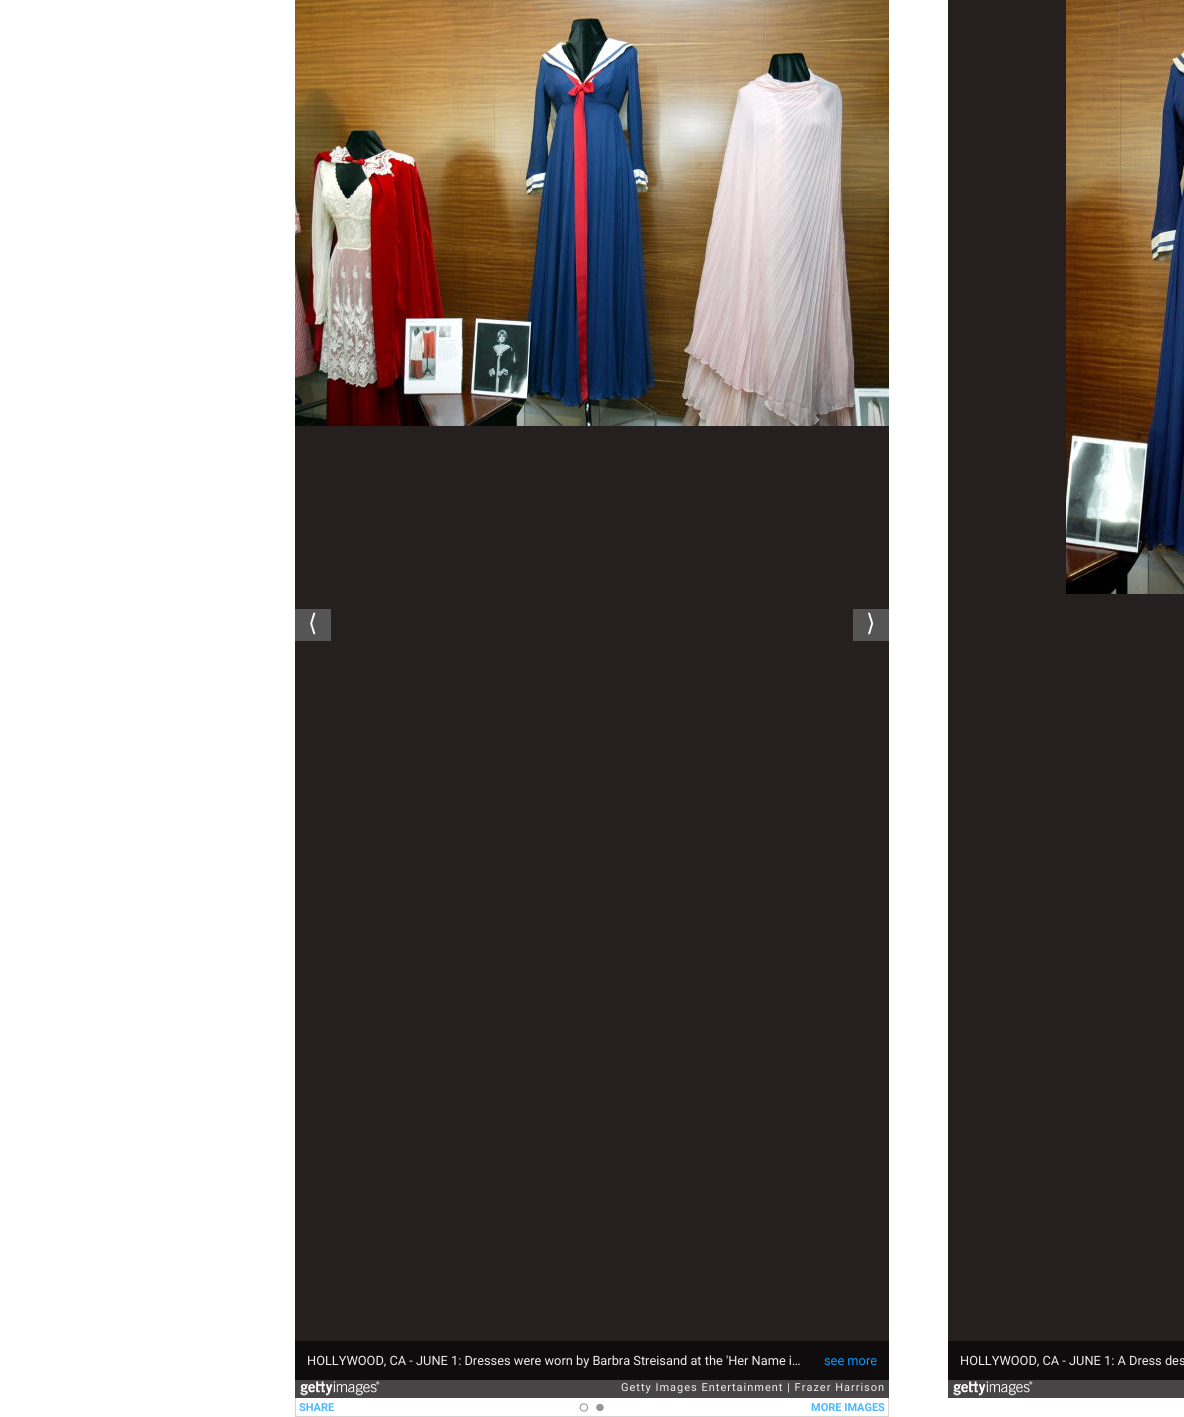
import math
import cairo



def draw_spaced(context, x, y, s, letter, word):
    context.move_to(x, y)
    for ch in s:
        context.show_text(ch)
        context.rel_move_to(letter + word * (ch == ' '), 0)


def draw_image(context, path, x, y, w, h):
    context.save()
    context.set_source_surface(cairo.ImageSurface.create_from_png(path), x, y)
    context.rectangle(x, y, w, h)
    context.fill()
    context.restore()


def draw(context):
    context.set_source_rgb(1, 1, 1)
    context.paint()
    context.set_source_rgb(37 / 255, 31 / 255, 32 / 255)
    context.rectangle(295, 426, 594, 915)
    context.fill()
    context.set_source_rgb(85 / 255, 85 / 255, 85 / 255)
    context.rectangle(295, 609, 36, 32)
    context.fill()
    context.rectangle(853, 609, 36, 32)
    context.fill()
    draw_image(context, "images/1.png", 295, 0, 594, 426)
    context.set_source_rgb(15 / 255, 12 / 255, 13 / 255)
    context.rectangle(295, 1341, 594, 39)
    context.fill()
    context.set_source_rgb(71 / 255, 69 / 255, 69 / 255)
    context.rectangle(295, 1380, 594, 18)
    context.fill()
    draw_image(context, "images/2.png", 300, 1381, 80, 15)
    context.set_source_rgb(211 / 255, 211 / 255, 211 / 255)
    context.rectangle(888, 1398, 1, 19)
    context.fill()
    context.rectangle(295, 1416, 594, 1)
    context.fill()
    context.rectangle(295, 1398, 1, 19)
    context.fill()
    draw_image(context, "images/3.png", 579, 1403, 10, 9)
    draw_image(context, "images/4.png", 596, 1403, 8, 9)
    context.set_source_rgb(37 / 255, 31 / 255, 32 / 255)
    context.rectangle(948, 0, 236, 1341)
    context.fill()
    draw_image(context, "images/5.png", 1066, 0, 118, 594)
    context.set_source_rgb(15 / 255, 12 / 255, 13 / 255)
    context.rectangle(948, 1341, 236, 39)
    context.fill()
    context.set_source_rgb(71 / 255, 69 / 255, 69 / 255)
    context.rectangle(948, 1380, 236, 18)
    context.fill()
    draw_image(context, "images/2.png", 953, 1381, 80, 15)
    context.select_font_face("DejaVu Sans")
    context.set_font_size(24)
    context.set_source_rgb(1, 1, 1)
    context.move_to(308, 631)
    context.show_text("⟨")
    context.move_to(866, 631)
    context.show_text("⟩")
    context.select_font_face("Roboto")
    context.set_font_size(12.8)
    context.set_source_rgb(238 / 255, 238 / 255, 238 / 255)
    context.move_to(307, 1365)
    context.show_text("HOLLYWOOD, CA - JUNE 1: Dresses were worn by Barbra Streisand at the 'Her Name i…")
    context.set_source_rgb(0, 153 / 255, 1)
    context.move_to(824, 1365)
    context.show_text("see more")
    context.set_font_size(11)
    context.set_source_rgb(238 / 255, 238 / 255, 238 / 255)
    draw_spaced(context, 621, 1391, "Getty Images Entertainment | Frazer Harrison", 1, 0)
    context.select_font_face("Roboto", cairo.FontSlant.NORMAL, cairo.FontWeight.BOLD)
    context.set_source_rgb(76 / 255, 183 / 255, 1)
    context.move_to(299, 1411)
    context.show_text("SHARE")
    context.move_to(811, 1411)
    context.show_text("MORE IMAGES")
    context.select_font_face("Roboto")
    context.set_font_size(12.8)
    context.set_source_rgb(238 / 255, 238 / 255, 238 / 255)
    context.move_to(960, 1365)
    context.show_text("HOLLYWOOD, CA - JUNE 1: A Dress des")


surface = cairo.ImageSurface(cairo.Format.RGB24, 1184, 1417)
context = cairo.Context(surface)
options = cairo.FontOptions()
options.set_hint_metrics(cairo.HintMetrics.OFF)
options.set_hint_style(cairo.HintStyle.NONE)
context.set_font_options(options)
context.set_miter_limit(4)
draw(context)
surface.write_to_png("out.png")
